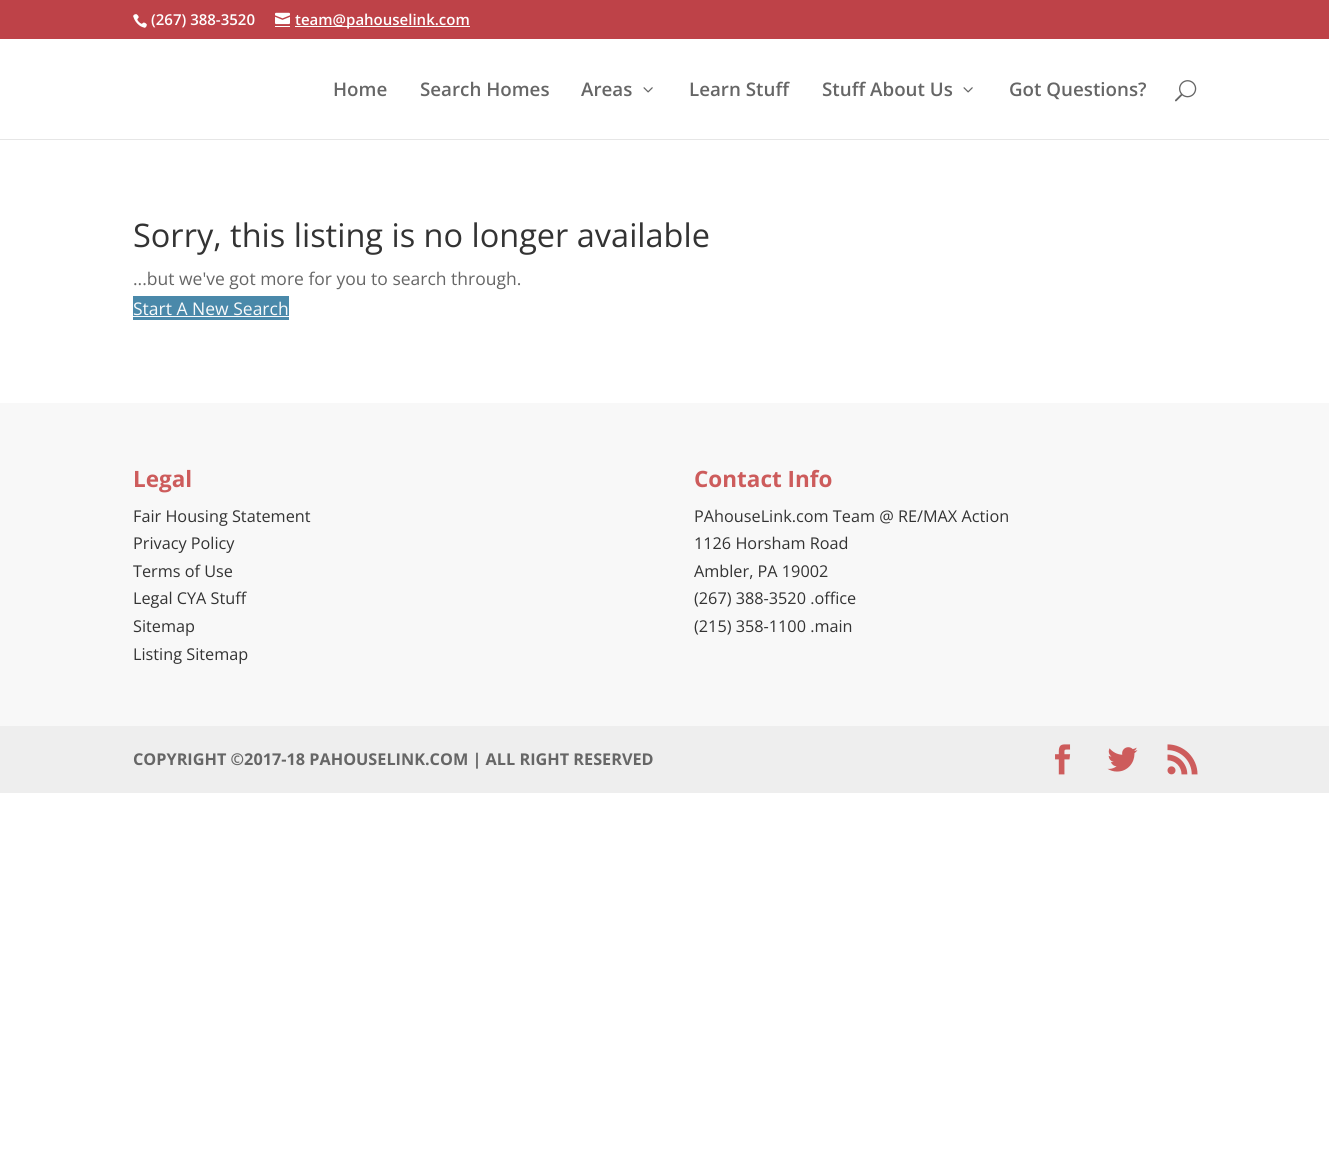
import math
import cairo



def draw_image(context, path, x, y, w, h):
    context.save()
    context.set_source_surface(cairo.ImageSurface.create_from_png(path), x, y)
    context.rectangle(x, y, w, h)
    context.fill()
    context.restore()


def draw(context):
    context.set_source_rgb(1, 1, 1)
    context.paint()
    context.set_source_rgb(190 / 255, 66 / 255, 72 / 255)
    context.rectangle(0, 0, 1329, 39)
    context.fill()
    draw_image(context, "images/1.png", 133, 14, 14, 14)
    draw_image(context, "images/2.png", 275, 12, 15, 13)
    context.set_source_rgb(1, 1, 1)
    context.rectangle(275, 26, 15, 1)
    context.fill()
    context.rectangle(295, 26, 175, 1)
    context.fill()
    context.set_source_rgb(230 / 255, 230 / 255, 230 / 255)
    context.rectangle(0, 139, 1329, 1)
    context.fill()
    draw_image(context, "images/3.png", 643, 87, 10, 6)
    draw_image(context, "images/3.png", 963, 87, 10, 6)
    draw_image(context, "images/4.png", 1175, 80, 22, 22)
    context.set_source_rgb(74 / 255, 137 / 255, 170 / 255)
    context.rectangle(133, 296, 156, 24)
    context.fill()
    context.set_source_rgb(249 / 255, 250 / 255, 251 / 255)
    context.rectangle(133, 316, 156, 1)
    context.fill()
    context.set_source_rgb(248 / 255, 248 / 255, 248 / 255)
    context.rectangle(0, 403, 1329, 323)
    context.fill()
    context.set_source_rgb(238 / 255, 238 / 255, 238 / 255)
    context.rectangle(0, 726, 1329, 67)
    context.fill()
    draw_image(context, "images/5.png", 1055, 744, 16, 31)
    draw_image(context, "images/6.png", 1107, 747, 31, 25)
    draw_image(context, "images/7.png", 1167, 744, 31, 31)
    context.select_font_face("Open Sans SemiBold")
    context.set_font_size(15)
    context.set_source_rgb(1, 1, 1)
    context.move_to(151, 25)
    context.show_text("(267) 388-3520")
    context.move_to(295, 25)
    context.show_text("team@pahouselink.com")
    context.set_font_size(18.75)
    context.set_source_rgb(102 / 255, 102 / 255, 102 / 255)
    context.move_to(333, 96)
    context.show_text("Home")
    context.move_to(420, 96)
    context.show_text("Search Homes")
    context.move_to(581, 96)
    context.show_text("Areas")
    context.move_to(689, 96)
    context.show_text("Learn Stuff")
    context.move_to(822, 96)
    context.show_text("Stuff About Us")
    context.move_to(1009, 96)
    context.show_text("Got Questions?")
    context.select_font_face("Open Sans")
    context.set_font_size(32.5)
    context.set_source_rgb(51 / 255, 51 / 255, 51 / 255)
    context.move_to(133, 247)
    context.show_text("Sorry, this listing is no longer available")
    context.set_font_size(17.5)
    context.set_source_rgb(102 / 255, 102 / 255, 102 / 255)
    context.move_to(133, 285)
    context.show_text("...but we've got more for you to search through.")
    context.set_source_rgb(249 / 255, 250 / 255, 251 / 255)
    context.move_to(133, 315)
    context.show_text("Start A New Search")
    context.select_font_face("Open Sans", cairo.FontSlant.NORMAL, cairo.FontWeight.BOLD)
    context.set_font_size(22.5)
    context.set_source_rgb(205 / 255, 92 / 255, 92 / 255)
    context.move_to(133, 487)
    context.show_text("Legal")
    context.select_font_face("Open Sans")
    context.set_font_size(16.25)
    context.set_source_rgb(51 / 255, 51 / 255, 51 / 255)
    context.move_to(133, 522)
    context.show_text("Fair Housing Statement")
    context.move_to(133, 549)
    context.show_text("Privacy Policy")
    context.move_to(133, 577)
    context.show_text("Terms of Use")
    context.move_to(133, 604)
    context.show_text("Legal CYA Stuff")
    context.move_to(133, 632)
    context.show_text("Sitemap")
    context.move_to(133, 660)
    context.show_text("Listing Sitemap")
    context.select_font_face("Open Sans", cairo.FontSlant.NORMAL, cairo.FontWeight.BOLD)
    context.set_font_size(22.5)
    context.set_source_rgb(205 / 255, 92 / 255, 92 / 255)
    context.move_to(694, 487)
    context.show_text("Contact Info")
    context.select_font_face("Open Sans")
    context.set_font_size(16.25)
    context.set_source_rgb(51 / 255, 51 / 255, 51 / 255)
    context.move_to(694, 522)
    context.show_text("PAhouseLink.com Team @ RE/MAX Action")
    context.move_to(694, 549)
    context.show_text("1126 Horsham Road")
    context.move_to(694, 577)
    context.show_text("Ambler, PA 19002")
    context.move_to(694, 604)
    context.show_text("(267) 388-3520 .office")
    context.move_to(694, 632)
    context.show_text("(215) 358-1100 .main")
    context.select_font_face("Open Sans", cairo.FontSlant.NORMAL, cairo.FontWeight.BOLD)
    context.set_source_rgb(102 / 255, 102 / 255, 102 / 255)
    context.move_to(133, 765)
    context.show_text("COPYRIGHT ©2017-18 PAHOUSELINK.COM | ALL RIGHT RESERVED")


surface = cairo.ImageSurface(cairo.Format.RGB24, 1329, 1173)
context = cairo.Context(surface)
options = cairo.FontOptions()
options.set_hint_metrics(cairo.HintMetrics.OFF)
options.set_hint_style(cairo.HintStyle.NONE)
context.set_font_options(options)
context.set_miter_limit(4)
draw(context)
surface.write_to_png("out.png")
